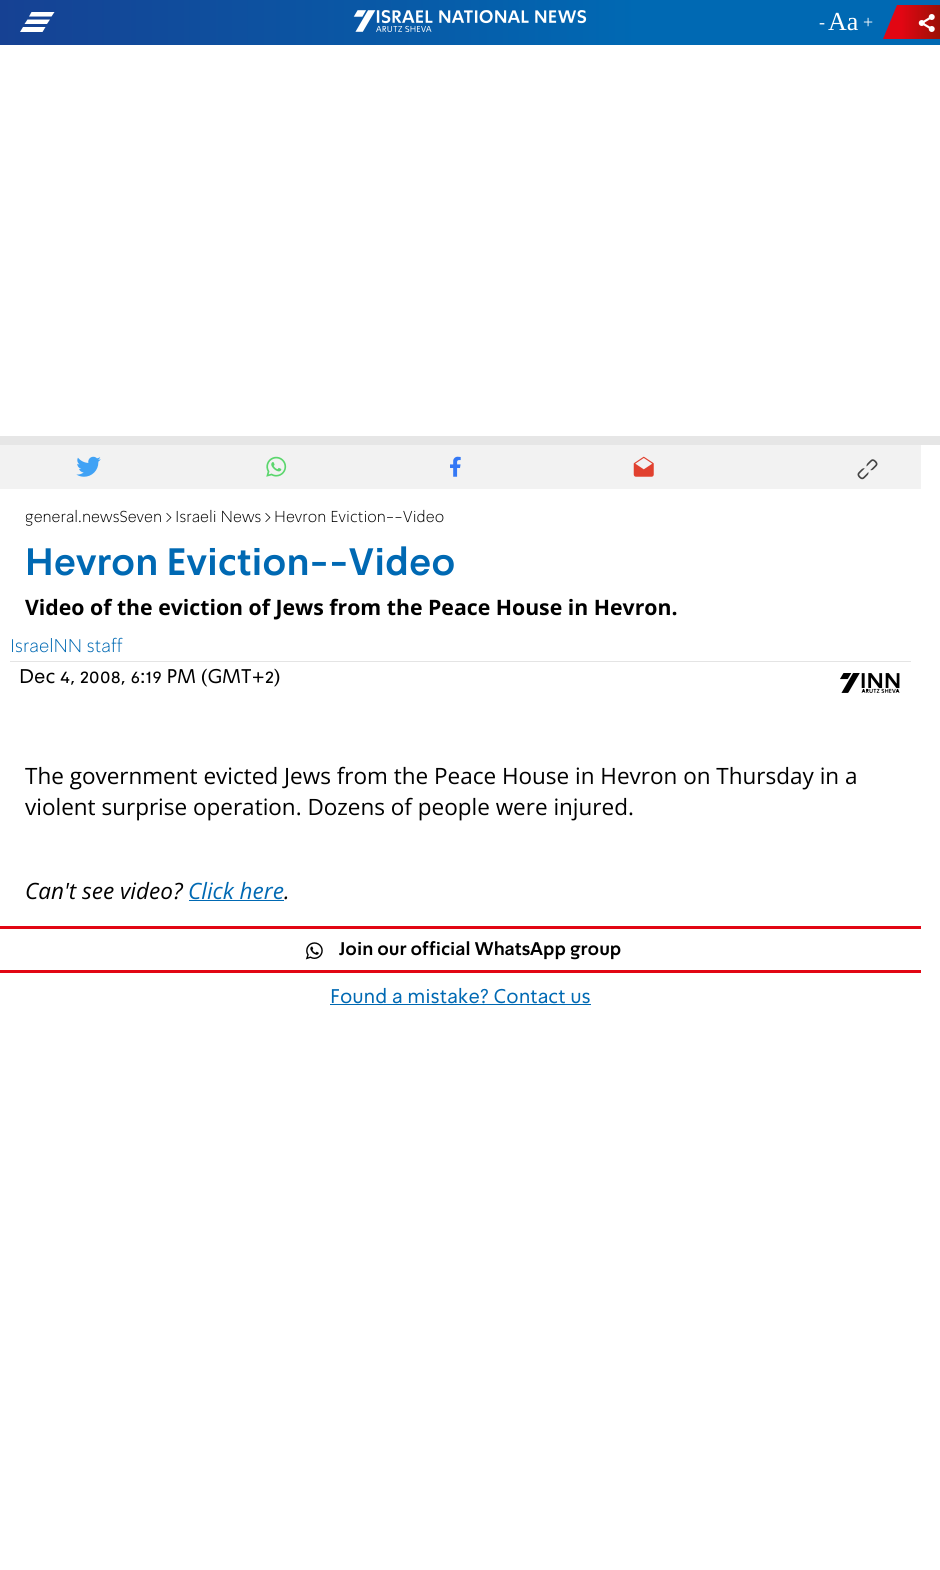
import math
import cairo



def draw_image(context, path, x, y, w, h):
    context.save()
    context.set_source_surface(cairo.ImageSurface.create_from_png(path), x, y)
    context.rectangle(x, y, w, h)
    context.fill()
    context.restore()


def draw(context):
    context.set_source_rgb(1, 1, 1)
    context.paint()
    gradient = cairo.LinearGradient(940, 22, 0, 23)
    gradient.add_color_stop_rgba(0.32, 0, 105 / 255, 179 / 255, 1)
    gradient.add_color_stop_rgba(1, 22 / 255, 65 / 255, 147 / 255, 1)
    context.set_source(gradient)
    context.rectangle(0, 0, 940, 45)
    context.fill()
    context.set_source_rgb(1, 1, 1)
    context.new_path()
    context.move_to(27.5, 19.5)
    context.line_to(24.5, 24)
    context.line_to(47, 24)
    context.line_to(50, 19.5)
    context.close_path()
    context.move_to(31.5, 12)
    context.line_to(29, 16.5)
    context.line_to(51.5, 16.5)
    context.line_to(54.5, 12)
    context.close_path()
    context.move_to(42.5, 32)
    context.line_to(45.5, 27)
    context.line_to(23, 27)
    context.line_to(20, 32)
    context.close_path()
    context.fill()
    draw_image(context, "images/1.png", 353, 10, 234, 22)
    gradient = cairo.LinearGradient(883, 22, 940, 22)
    gradient.add_color_stop_rgba(0.32, 226 / 255, 6 / 255, 19 / 255, 1)
    gradient.add_color_stop_rgba(1, 155 / 255, 16 / 255, 6 / 255, 1)
    context.set_source(gradient)
    context.new_path()
    context.move_to(897, 5)
    context.line_to(940, 5)
    context.line_to(940, 39)
    context.line_to(883, 39)
    context.close_path()
    context.fill()
    draw_image(context, "images/2.png", 918, 14, 17, 18)
    context.set_source_rgb(230 / 255, 230 / 255, 230 / 255)
    context.rectangle(0, 436, 940, 9)
    context.fill()
    context.set_source_rgb(242 / 255, 242 / 255, 242 / 255)
    context.rectangle(0, 445, 921, 44)
    context.fill()
    draw_image(context, "images/3.png", 76, 456, 25, 21)
    draw_image(context, "images/4.png", 266, 456, 21, 21)
    draw_image(context, "images/5.png", 450, 456, 11, 21)
    draw_image(context, "images/6.png", 633, 456, 21, 21)
    draw_image(context, "images/7.png", 857, 459, 21, 21)
    context.set_source_rgb(228 / 255, 228 / 255, 228 / 255)
    context.rectangle(10, 661, 901, 1)
    context.fill()
    draw_image(context, "images/8.png", 840, 673, 60, 20)
    context.set_source_rgb(0, 105 / 255, 179 / 255)
    context.rectangle(189, 900, 95, 1)
    context.fill()
    context.set_source_rgb(226 / 255, 6 / 255, 19 / 255)
    context.rectangle(0, 926, 921, 3)
    context.fill()
    context.rectangle(0, 970, 921, 3)
    context.fill()
    draw_image(context, "images/9.png", 305, 942, 18, 18)
    context.set_source_rgb(0, 105 / 255, 179 / 255)
    context.rectangle(330, 1004, 261, 1)
    context.fill()
    context.select_font_face("Liberation Serif")
    context.set_font_size(18)
    context.set_source_rgb(1, 1, 1)
    context.move_to(819, 28)
    context.show_text("-")
    context.set_font_size(26)
    context.move_to(828, 30)
    context.show_text("Aa")
    context.set_font_size(18)
    context.move_to(863, 28)
    context.show_text("+")
    context.select_font_face("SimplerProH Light")
    context.set_font_size(16.25)
    context.set_source_rgb(0, 0, 0)
    context.move_to(25, 522)
    context.show_text("general.newsSeven")
    context.move_to(165, 522)
    context.show_text(">")
    context.move_to(175, 522)
    context.show_text("Israeli News")
    context.move_to(264, 522)
    context.show_text(">")
    context.move_to(274, 522)
    context.show_text("Hevron Eviction--Video")
    context.select_font_face("SimplerProH", cairo.FontSlant.NORMAL, cairo.FontWeight.BOLD)
    context.set_font_size(37.5)
    context.set_source_rgb(0, 105 / 255, 179 / 255)
    context.move_to(25, 575)
    context.show_text("Hevron Eviction--Video")
    context.select_font_face("Open Sans", cairo.FontSlant.NORMAL, cairo.FontWeight.BOLD)
    context.set_font_size(21.25)
    context.set_source_rgb(0, 0, 0)
    context.move_to(25, 615)
    context.show_text("Video of the eviction of Jews from the Peace House in Hevron.")
    context.select_font_face("SimplerProH Light")
    context.set_font_size(18.75)
    context.set_source_rgb(0, 105 / 255, 179 / 255)
    context.move_to(10, 652)
    context.show_text("IsraelNN staff")
    context.select_font_face("SimplerProH")
    context.set_font_size(20)
    context.set_source_rgb(0, 0, 0)
    context.move_to(19, 683)
    context.show_text("Dec 4, 2008, 6:19 PM (GMT+2)")
    context.select_font_face("Open Sans")
    context.set_font_size(22.5)
    context.move_to(25, 784)
    context.show_text("The government evicted Jews from the Peace House in Hevron on Thursday in a")
    context.move_to(25, 815)
    context.show_text("violent surprise operation. Dozens of people were injured.")
    context.select_font_face("Open Sans", cairo.FontSlant.ITALIC)
    context.move_to(25, 899)
    context.show_text("Can't see video?")
    context.set_source_rgb(0, 105 / 255, 179 / 255)
    context.move_to(188, 899)
    context.show_text("Click here")
    context.set_source_rgb(0, 0, 0)
    context.move_to(284, 899)
    context.show_text(".")
    context.select_font_face("SimplerProH", cairo.FontSlant.NORMAL, cairo.FontWeight.BOLD)
    context.set_font_size(18)
    context.move_to(339, 955)
    context.show_text("Join our official WhatsApp group")
    context.select_font_face("SimplerProH")
    context.set_font_size(20)
    context.set_source_rgb(0, 105 / 255, 179 / 255)
    context.move_to(330, 1003)
    context.show_text("Found a mistake? Contact us")


surface = cairo.ImageSurface(cairo.Format.RGB24, 940, 1570)
context = cairo.Context(surface)
options = cairo.FontOptions()
options.set_hint_metrics(cairo.HintMetrics.OFF)
options.set_hint_style(cairo.HintStyle.NONE)
context.set_font_options(options)
context.set_miter_limit(4)
draw(context)
surface.write_to_png("out.png")
